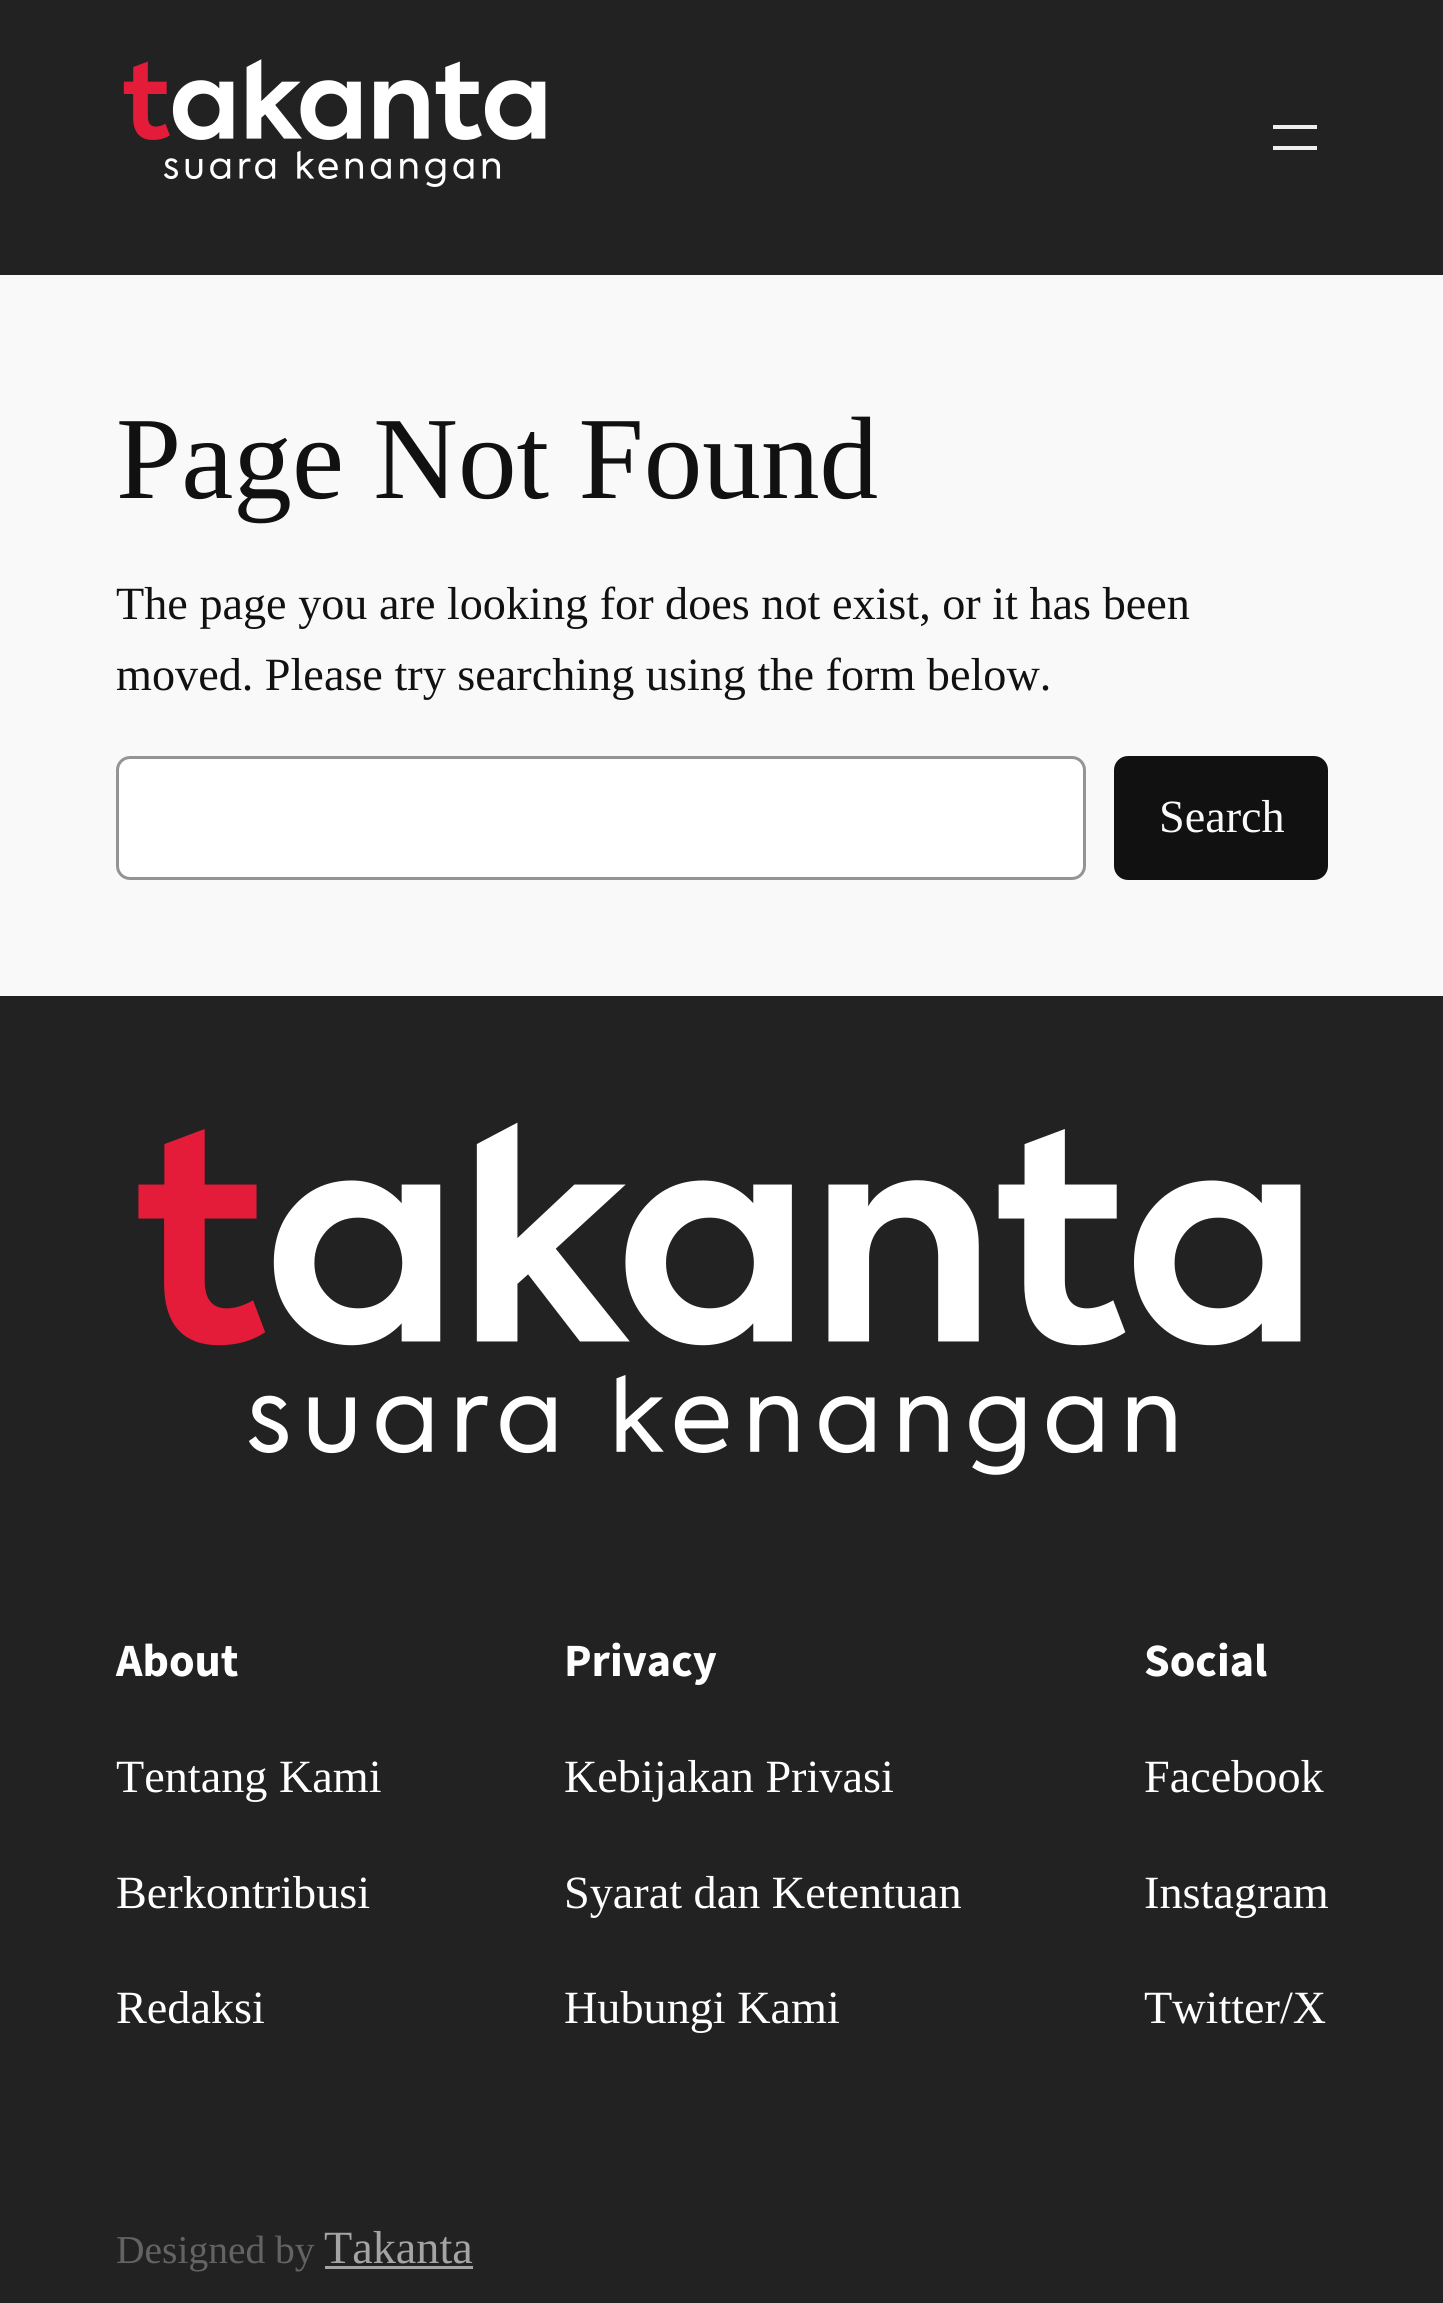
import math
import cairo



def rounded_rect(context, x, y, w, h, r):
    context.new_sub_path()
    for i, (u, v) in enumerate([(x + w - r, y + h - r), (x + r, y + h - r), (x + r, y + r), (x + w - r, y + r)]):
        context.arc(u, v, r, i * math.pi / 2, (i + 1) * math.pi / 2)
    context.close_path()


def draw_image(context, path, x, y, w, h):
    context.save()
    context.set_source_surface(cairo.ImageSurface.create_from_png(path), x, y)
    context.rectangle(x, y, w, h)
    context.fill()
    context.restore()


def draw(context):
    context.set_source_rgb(249 / 255, 249 / 255, 249 / 255)
    context.paint()
    context.set_source_rgb(34 / 255, 34 / 255, 34 / 255)
    context.rectangle(0, 0, 1443, 275)
    context.fill()
    draw_image(context, "images/1.png", 123, 59, 423, 128)
    context.set_source_rgb(238 / 255, 238 / 255, 238 / 255)
    context.rectangle(1273, 125, 44, 4)
    context.fill()
    context.rectangle(1273, 146, 44, 4)
    context.fill()
    context.set_source_rgb(1, 1, 1)
    rounded_rect(context, 117.5, 757.5, 967, 121, 12.5)
    context.fill_preserve()
    context.set_source_rgb(148 / 255, 148 / 255, 148 / 255)
    context.set_line_width(3)
    context.stroke()
    context.set_source_rgb(17 / 255, 17 / 255, 17 / 255)
    rounded_rect(context, 1114, 756, 214, 124, 14)
    context.fill()
    context.set_source_rgb(34 / 255, 34 / 255, 34 / 255)
    context.rectangle(0, 996, 1443, 1307)
    context.fill()
    draw_image(context, "images/2.png", 138, 1122, 1163, 353)
    context.set_source_rgb(164 / 255, 164 / 255, 164 / 255)
    context.rectangle(325, 2266, 148, 3)
    context.fill()
    context.select_font_face("Liberation Serif")
    context.set_font_size(117.25)
    context.set_source_rgb(17 / 255, 17 / 255, 17 / 255)
    context.move_to(116, 498)
    context.show_text("Page Not Found")
    context.set_font_size(46.2)
    context.move_to(116, 619)
    context.show_text("The page you are looking for does not exist, or it has been")
    context.move_to(116, 690)
    context.show_text("moved. Please try searching using the form below.")
    context.set_source_rgb(249 / 255, 249 / 255, 249 / 255)
    context.move_to(1159, 832)
    context.show_text("Search")
    context.select_font_face("Source Sans 3", cairo.FontSlant.NORMAL, cairo.FontWeight.BOLD)
    context.set_source_rgb(1, 1, 1)
    context.move_to(116, 1676)
    context.show_text("About")
    context.select_font_face("Liberation Serif")
    context.move_to(116, 1792)
    context.show_text("Tentang Kami")
    context.move_to(116, 1908)
    context.show_text("Berkontribusi")
    context.move_to(116, 2023)
    context.show_text("Redaksi")
    context.select_font_face("Source Sans 3", cairo.FontSlant.NORMAL, cairo.FontWeight.BOLD)
    context.move_to(564, 1676)
    context.show_text("Privacy")
    context.select_font_face("Liberation Serif")
    context.move_to(564, 1792)
    context.show_text("Kebijakan Privasi")
    context.move_to(564, 1908)
    context.show_text("Syarat dan Ketentuan")
    context.move_to(564, 2023)
    context.show_text("Hubungi Kami")
    context.select_font_face("Source Sans 3", cairo.FontSlant.NORMAL, cairo.FontWeight.BOLD)
    context.move_to(1144, 1676)
    context.show_text("Social")
    context.select_font_face("Liberation Serif")
    context.move_to(1144, 1792)
    context.show_text("Facebook")
    context.move_to(1144, 1908)
    context.show_text("Instagram")
    context.move_to(1144, 2023)
    context.show_text("Twitter/X")
    context.set_font_size(39.5)
    context.set_source_rgb(99 / 255, 99 / 255, 99 / 255)
    context.move_to(116, 2263)
    context.show_text("Designed by")
    context.set_font_size(46.2)
    context.set_source_rgb(164 / 255, 164 / 255, 164 / 255)
    context.move_to(324, 2263)
    context.show_text("Takanta")


surface = cairo.ImageSurface(cairo.Format.RGB24, 1443, 2303)
context = cairo.Context(surface)
options = cairo.FontOptions()
options.set_hint_metrics(cairo.HintMetrics.OFF)
options.set_hint_style(cairo.HintStyle.NONE)
context.set_font_options(options)
context.set_miter_limit(4)
draw(context)
surface.write_to_png("out.png")
